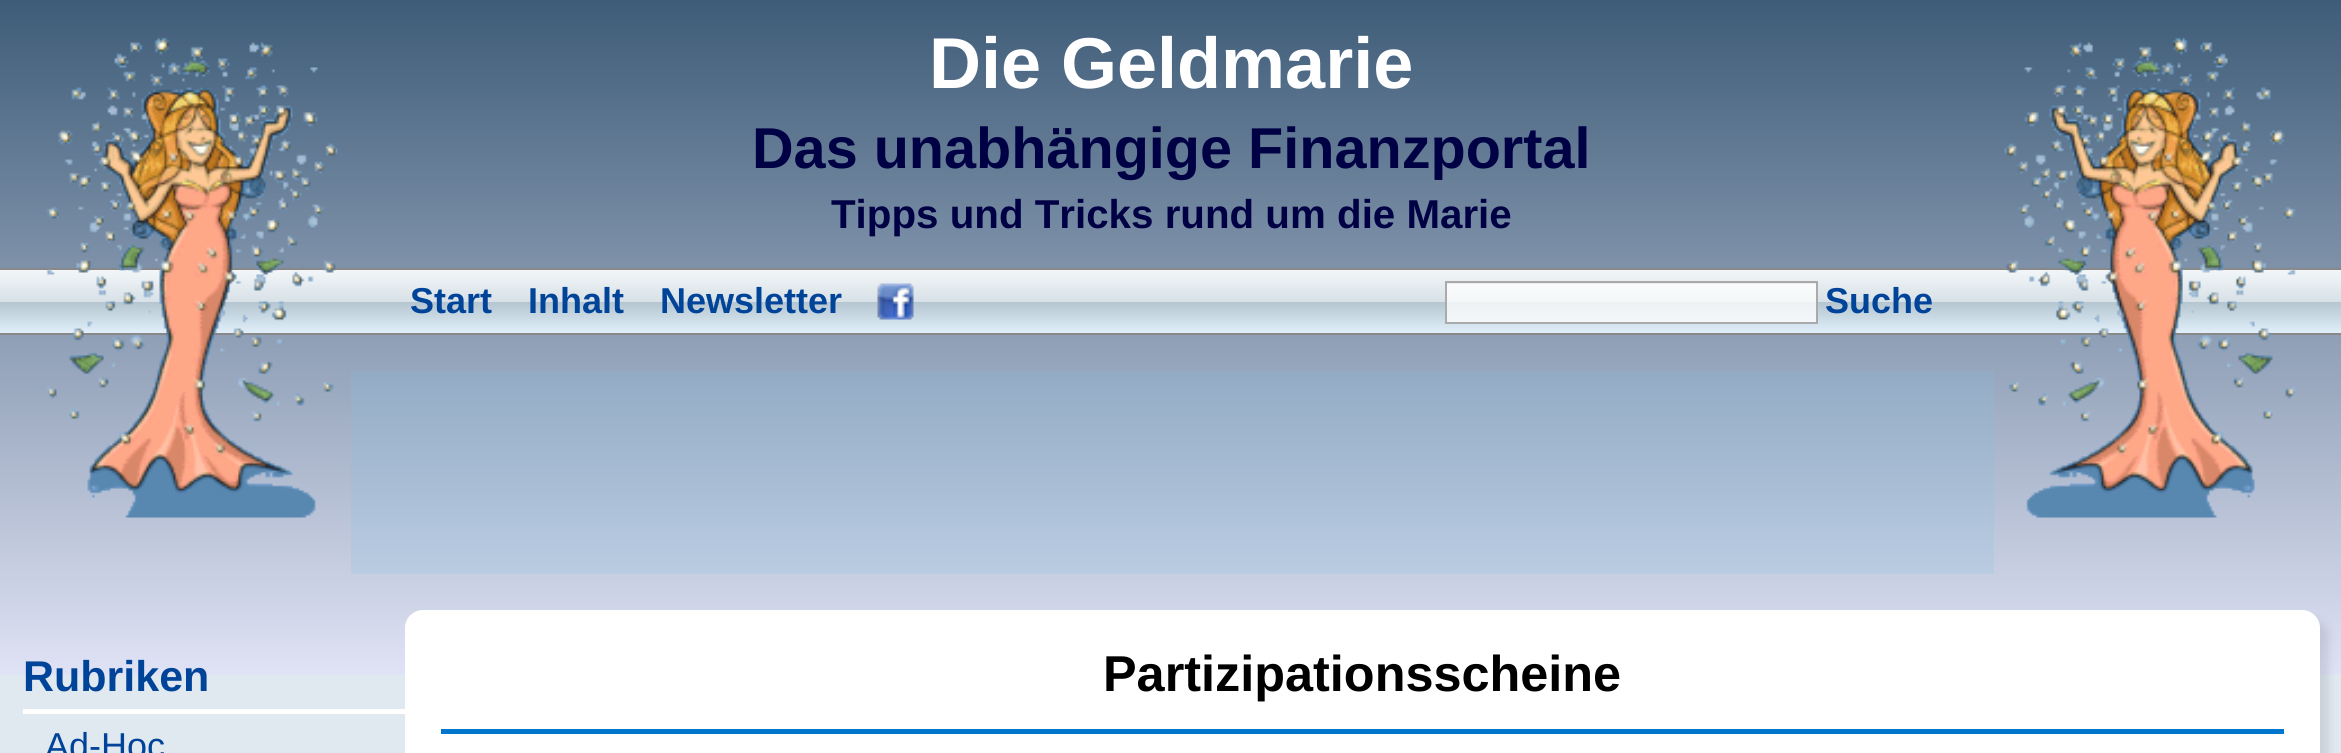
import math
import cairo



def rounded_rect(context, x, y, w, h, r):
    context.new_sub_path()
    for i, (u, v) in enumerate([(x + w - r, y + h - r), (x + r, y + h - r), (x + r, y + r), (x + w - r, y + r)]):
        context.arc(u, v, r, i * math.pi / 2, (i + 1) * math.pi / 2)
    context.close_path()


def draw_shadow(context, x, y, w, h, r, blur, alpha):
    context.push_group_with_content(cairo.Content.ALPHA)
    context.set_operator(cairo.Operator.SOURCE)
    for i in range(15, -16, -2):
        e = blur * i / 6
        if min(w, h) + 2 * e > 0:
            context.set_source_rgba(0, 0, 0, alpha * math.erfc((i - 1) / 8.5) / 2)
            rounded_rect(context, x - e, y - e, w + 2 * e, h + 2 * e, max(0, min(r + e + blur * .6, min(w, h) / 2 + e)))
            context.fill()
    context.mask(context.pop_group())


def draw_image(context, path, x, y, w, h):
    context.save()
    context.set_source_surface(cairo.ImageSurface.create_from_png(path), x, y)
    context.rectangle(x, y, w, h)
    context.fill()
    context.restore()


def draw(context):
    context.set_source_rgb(224 / 255, 232 / 255, 240 / 255)
    context.paint()
    gradient = cairo.LinearGradient(1171, 0, 1171, 675)
    gradient.add_color_stop_rgba(0, 62 / 255, 92 / 255, 120 / 255, 1)
    gradient.add_color_stop_rgba(1, 224 / 255, 227 / 255, 245 / 255, 1)
    context.set_source(gradient)
    context.rectangle(0, 0, 2341, 675)
    context.fill()
    gradient = cairo.LinearGradient(1171, 0, 1171, 675)
    gradient.add_color_stop_rgba(0, 75 / 255, 112 / 255, 141 / 255, 1)
    gradient.add_color_stop_rgba(1, 205 / 255, 220 / 255, 241 / 255, 1)
    context.set_source(gradient)
    context.rectangle(351, 371, 1643, 203)
    context.fill()
    gradient = cairo.LinearGradient(1171, 270, 1171, 333)
    gradient.add_color_stop_rgba(0, 242 / 255, 246 / 255, 248 / 255, 1)
    gradient.add_color_stop_rgba(0.5, 216 / 255, 225 / 255, 231 / 255, 1)
    gradient.add_color_stop_rgba(0.51, 181 / 255, 198 / 255, 208 / 255, 1)
    gradient.add_color_stop_rgba(1, 224 / 255, 239 / 255, 249 / 255, 1)
    context.set_source(gradient)
    context.rectangle(0, 270, 2341, 63)
    context.fill()
    gradient = cairo.LinearGradient(1171, 270, 1171, 333)
    gradient.add_color_stop_rgba(0, 252 / 255, 253 / 255, 253 / 255, 1)
    gradient.add_color_stop_rgba(0.5, 245 / 255, 248 / 255, 249 / 255, 1)
    gradient.add_color_stop_rgba(0.51, 237 / 255, 241 / 255, 243 / 255, 1)
    gradient.add_color_stop_rgba(1, 247 / 255, 251 / 255, 254 / 255, 1)
    context.set_source(gradient)
    context.rectangle(1447, 284, 369, 38)
    context.fill()
    context.set_source_rgb(136 / 255, 136 / 255, 136 / 255)
    context.rectangle(0, 268, 2341, 2)
    context.fill()
    context.rectangle(0, 333, 2341, 2)
    context.fill()
    draw_image(context, "images/1.png", 46, 37, 292, 481)
    draw_image(context, "images/2.png", 877, 283, 37, 37)
    context.rectangle(1446, 282, 371, 41)
    context.set_source_rgb(170 / 255, 170 / 255, 170 / 255)
    context.stroke()
    draw_image(context, "images/3.png", 2004, 37, 292, 481)
    context.set_source_rgb(1, 1, 1)
    context.rectangle(23, 709, 382, 5)
    context.fill()
    context.set_source_rgb(0, 0, 0)
    draw_shadow(context, 414, 619, 1915, 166, 18, 4.5, 0.1)
    context.set_source_rgb(1, 1, 1)
    rounded_rect(context, 405, 610, 1915, 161, 18)
    context.fill()
    context.set_source_rgb(0, 119 / 255, 204 / 255)
    context.rectangle(441, 729, 1843, 5)
    context.fill()
    context.select_font_face("Liberation Sans", cairo.FontSlant.NORMAL, cairo.FontWeight.BOLD)
    context.set_font_size(72)
    context.set_source_rgb(1, 1, 1)
    context.move_to(929, 88)
    context.show_text("Die Geldmarie")
    context.set_font_size(57.6)
    context.set_source_rgb(0, 0, 68 / 255)
    context.move_to(752, 168)
    context.show_text("Das unabhängige Finanzportal")
    context.set_font_size(40.3)
    context.move_to(831, 228)
    context.show_text("Tipps und Tricks rund um die Marie")
    context.set_font_size(36)
    context.set_source_rgb(0, 68 / 255, 153 / 255)
    context.move_to(410, 313)
    context.show_text("Start")
    context.move_to(528, 313)
    context.show_text("Inhalt")
    context.move_to(660, 313)
    context.show_text("Newsletter")
    context.move_to(1825, 313)
    context.show_text("Suche")
    context.set_font_size(43)
    context.move_to(23, 691)
    context.show_text("Rubriken")
    context.select_font_face("Liberation Sans")
    context.set_font_size(36)
    context.move_to(45, 758)
    context.show_text("Ad-Hoc")
    context.select_font_face("Liberation Sans", cairo.FontSlant.NORMAL, cairo.FontWeight.BOLD)
    context.set_font_size(50.4)
    context.set_source_rgb(0, 0, 0)
    context.move_to(1103, 691)
    context.show_text("Partizipationsscheine")


surface = cairo.ImageSurface(cairo.Format.RGB24, 2341, 753)
context = cairo.Context(surface)
options = cairo.FontOptions()
options.set_hint_metrics(cairo.HintMetrics.OFF)
options.set_hint_style(cairo.HintStyle.NONE)
context.set_font_options(options)
context.set_miter_limit(4)
draw(context)
surface.write_to_png("out.png")
